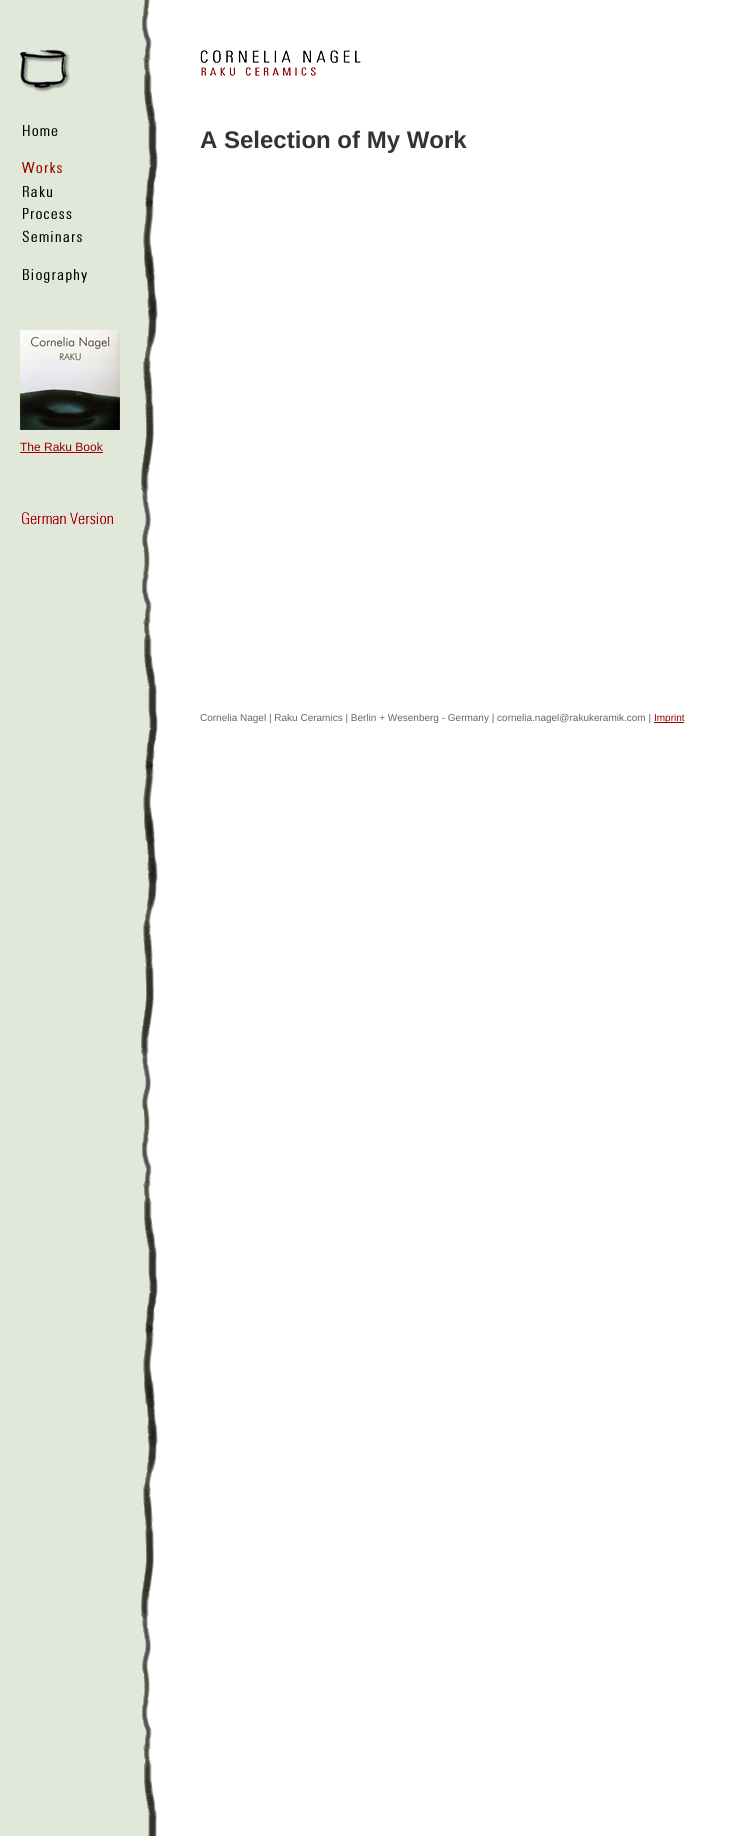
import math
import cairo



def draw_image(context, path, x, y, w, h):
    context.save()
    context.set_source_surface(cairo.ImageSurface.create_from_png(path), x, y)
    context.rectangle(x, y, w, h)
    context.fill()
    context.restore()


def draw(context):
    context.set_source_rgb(1, 1, 1)
    context.paint()
    draw_image(context, "images/1.png", 0, 0, 158, 1836)
    draw_image(context, "images/2.png", 18, 48, 52, 44)
    draw_image(context, "images/3.png", 23, 125, 35, 11)
    draw_image(context, "images/4.png", 22, 162, 40, 11)
    draw_image(context, "images/5.png", 23, 186, 29, 11)
    draw_image(context, "images/6.png", 23, 208, 49, 11)
    draw_image(context, "images/7.png", 22, 230, 60, 12)
    draw_image(context, "images/8.png", 23, 269, 64, 14)
    draw_image(context, "images/9.png", 20, 330, 100, 100)
    context.set_source_rgb(153 / 255, 0, 0)
    context.rectangle(20, 452, 83, 1)
    context.fill()
    draw_image(context, "images/10.png", 22, 512, 91, 13)
    draw_image(context, "images/11.png", 200, 50, 161, 26)
    context.rectangle(654, 722, 30, 1)
    context.fill()
    context.select_font_face("Liberation Sans")
    context.set_font_size(12)
    context.move_to(20, 451)
    context.show_text("The Raku Book")
    context.select_font_face("Liberation Sans", cairo.FontSlant.NORMAL, cairo.FontWeight.BOLD)
    context.set_font_size(24)
    context.set_source_rgb(51 / 255, 51 / 255, 51 / 255)
    context.move_to(200, 148)
    context.show_text("A Selection of My Work")
    context.select_font_face("Liberation Sans")
    context.set_font_size(10)
    context.set_source_rgb(102 / 255, 102 / 255, 102 / 255)
    context.move_to(200, 721)
    context.show_text("Cornelia Nagel | Raku Ceramics | Berlin + Wesenberg - Germany | cornelia.nagel@rakukeramik.com |")
    context.set_source_rgb(153 / 255, 0, 0)
    context.move_to(654, 721)
    context.show_text("Imprint")


surface = cairo.ImageSurface(cairo.Format.RGB24, 745, 1836)
context = cairo.Context(surface)
options = cairo.FontOptions()
options.set_hint_metrics(cairo.HintMetrics.OFF)
options.set_hint_style(cairo.HintStyle.NONE)
context.set_font_options(options)
context.set_miter_limit(4)
draw(context)
surface.write_to_png("out.png")
